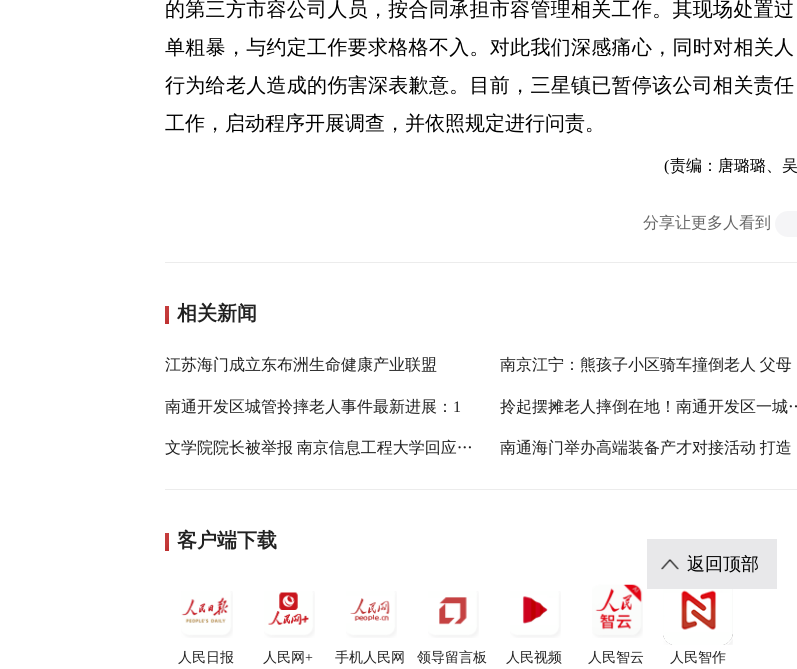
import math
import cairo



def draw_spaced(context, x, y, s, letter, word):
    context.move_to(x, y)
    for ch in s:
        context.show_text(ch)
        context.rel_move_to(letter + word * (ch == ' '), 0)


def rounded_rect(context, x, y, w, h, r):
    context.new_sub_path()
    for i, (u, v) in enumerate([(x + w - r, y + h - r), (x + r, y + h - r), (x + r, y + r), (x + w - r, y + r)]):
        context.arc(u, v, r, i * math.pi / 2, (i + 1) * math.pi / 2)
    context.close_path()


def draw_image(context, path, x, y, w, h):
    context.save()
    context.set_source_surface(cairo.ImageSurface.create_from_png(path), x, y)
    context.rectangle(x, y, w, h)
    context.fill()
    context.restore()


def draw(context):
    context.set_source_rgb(1, 1, 1)
    context.paint()
    context.set_source_rgb(245 / 255, 245 / 255, 247 / 255)
    rounded_rect(context, 775, 211, 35, 26, 13)
    context.fill()
    context.set_source_rgb(236 / 255, 236 / 255, 236 / 255)
    context.rectangle(165, 262, 632, 1)
    context.fill()
    gradient = cairo.LinearGradient(162, 310, 173, 321)
    gradient.add_color_stop_rgba(0, 197 / 255, 61 / 255, 61 / 255, 1)
    gradient.add_color_stop_rgba(0.49, 196 / 255, 58 / 255, 58 / 255, 1)
    gradient.add_color_stop_rgba(1, 187 / 255, 45 / 255, 45 / 255, 1)
    context.set_source(gradient)
    context.rectangle(165, 306, 4, 18)
    context.fill()
    context.set_source_rgb(236 / 255, 236 / 255, 236 / 255)
    context.rectangle(165, 489, 632, 1)
    context.fill()
    gradient = cairo.LinearGradient(162, 537, 173, 548)
    gradient.add_color_stop_rgba(0, 197 / 255, 61 / 255, 61 / 255, 1)
    gradient.add_color_stop_rgba(0.49, 196 / 255, 58 / 255, 58 / 255, 1)
    gradient.add_color_stop_rgba(1, 187 / 255, 45 / 255, 45 / 255, 1)
    context.set_source(gradient)
    context.rectangle(165, 533, 4, 18)
    context.fill()
    draw_image(context, "images/1.png", 181, 591, 52, 47)
    draw_image(context, "images/2.png", 264, 591, 51, 47)
    draw_image(context, "images/3.png", 346, 591, 51, 47)
    draw_image(context, "images/4.png", 428, 591, 51, 47)
    draw_image(context, "images/5.png", 510, 591, 51, 47)
    draw_image(context, "images/6.png", 592, 584, 51, 54)
    draw_image(context, "images/7.png", 663, 589, 70, 56)
    draw_image(context, "images/8.png", 647, 539, 130, 50)
    context.select_font_face("WenQuanYi Zen Hei Medium")
    context.set_font_size(20)
    context.set_source_rgb(0, 0, 0)
    draw_spaced(context, 165, 16, "的第三方市容公司人员，按合同承担市容管理相关工作。其现场处置过", 0.3, 0)
    draw_spaced(context, 165, 54, "单粗暴，与约定工作要求格格不入。对此我们深感痛心，同时对相关人", 0.3, 0)
    draw_spaced(context, 165, 92, "行为给老人造成的伤害深表歉意。目前，三星镇已暂停该公司相关责任", 0.3, 0)
    context.move_to(165, 130)
    context.show_text("工作，启动程序开展调查，并依照规定进行问责。")
    context.select_font_face("Liberation Serif")
    context.set_font_size(16)
    context.move_to(664, 171)
    context.show_text("(")
    context.select_font_face("WenQuanYi Zen Hei Medium")
    context.move_to(670, 171)
    context.show_text("责编：唐璐璐、吴")
    context.set_source_rgb(102 / 255, 102 / 255, 102 / 255)
    context.move_to(643, 228)
    context.show_text("分享让更多人看到")
    context.select_font_face("WenQuanYi Zen Hei", cairo.FontSlant.NORMAL, cairo.FontWeight.BOLD)
    context.set_font_size(20)
    context.set_source_rgb(33 / 255, 33 / 255, 33 / 255)
    context.move_to(177, 320)
    context.show_text("相关新闻")
    context.select_font_face("WenQuanYi Zen Hei Medium")
    context.set_font_size(16)
    context.move_to(165, 370)
    context.show_text("江苏海门成立东布洲生命健康产业联盟")
    draw_spaced(context, 500, 370, "南京江宁：熊孩子小区骑车撞倒老人 父母", 0, -1)
    context.move_to(165, 412)
    context.show_text("南通开发区城管拎摔老人事件最新进展：")
    context.select_font_face("Liberation Serif")
    context.move_to(453, 412)
    context.show_text("1")
    context.select_font_face("WenQuanYi Zen Hei Medium")
    context.move_to(500, 412)
    context.show_text("拎起摆摊老人摔倒在地！南通开发区一城…")
    draw_spaced(context, 165, 453, "文学院院长被举报 南京信息工程大学回应…", 0, -1)
    draw_spaced(context, 500, 453, "南通海门举办高端装备产才对接活动 打造", 0, -1)
    context.select_font_face("WenQuanYi Zen Hei", cairo.FontSlant.NORMAL, cairo.FontWeight.BOLD)
    context.set_font_size(20)
    context.move_to(177, 547)
    context.show_text("客户端下载")
    context.select_font_face("WenQuanYi Zen Hei Medium")
    context.set_font_size(14)
    context.move_to(178, 662)
    context.show_text("人民日报")
    context.move_to(263, 662)
    context.show_text("人民网")
    context.select_font_face("Liberation Serif")
    context.move_to(305, 662)
    context.show_text("+")
    context.select_font_face("WenQuanYi Zen Hei Medium")
    context.move_to(335, 662)
    context.show_text("手机人民网")
    context.move_to(417, 662)
    context.show_text("领导留言板")
    context.move_to(506, 662)
    context.show_text("人民视频")
    context.move_to(588, 662)
    context.show_text("人民智云")
    context.move_to(670, 662)
    context.show_text("人民智作")
    context.set_font_size(18)
    context.set_source_rgb(0, 0, 0)
    context.move_to(687, 570)
    context.show_text("返回顶部")


surface = cairo.ImageSurface(cairo.Format.RGB24, 797, 669)
context = cairo.Context(surface)
options = cairo.FontOptions()
options.set_hint_metrics(cairo.HintMetrics.OFF)
options.set_hint_style(cairo.HintStyle.NONE)
context.set_font_options(options)
context.set_miter_limit(4)
draw(context)
surface.write_to_png("out.png")
